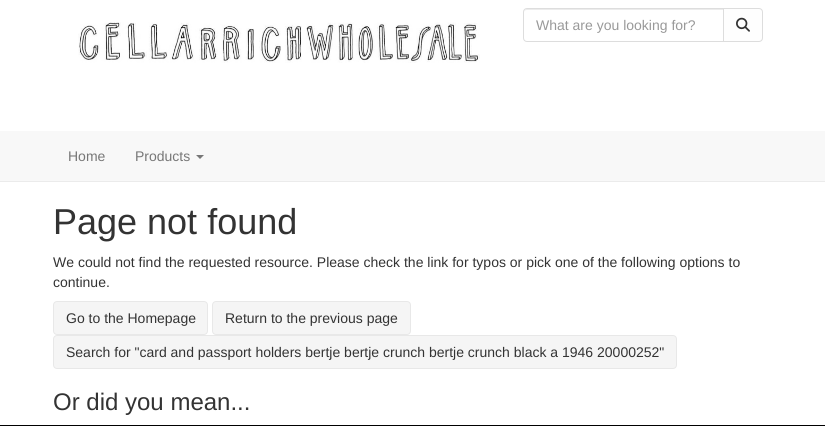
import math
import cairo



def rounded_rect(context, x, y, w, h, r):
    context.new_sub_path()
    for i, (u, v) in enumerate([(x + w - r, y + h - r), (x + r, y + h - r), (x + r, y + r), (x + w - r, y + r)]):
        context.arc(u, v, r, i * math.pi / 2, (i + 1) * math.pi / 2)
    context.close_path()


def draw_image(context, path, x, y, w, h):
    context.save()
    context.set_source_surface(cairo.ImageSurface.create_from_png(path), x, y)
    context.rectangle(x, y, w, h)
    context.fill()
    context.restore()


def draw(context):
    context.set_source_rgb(1, 1, 1)
    context.paint()
    draw_image(context, "images/1.png", 78, 22, 402, 41)
    context.set_source_rgb(236 / 255, 236 / 255, 236 / 255)
    context.new_path()
    context.move_to(527, 10)
    context.line_to(723, 10)
    context.line_to(723, 9)
    context.line_to(527, 9)
    context.curve_to(525, 9, 524, 11, 524, 13)
    context.curve_to(524, 11, 525, 10, 527, 10)
    context.close_path()
    context.fill()
    context.new_path()
    context.move_to(527, 8.5)
    context.line_to(723.5, 8.5)
    context.line_to(723.5, 41.5)
    context.line_to(527, 41.5)
    context.curve_to(525, 41.5, 523.5, 40, 523.5, 38)
    context.line_to(523.5, 12)
    context.curve_to(523.5, 10, 525, 8.5, 527, 8.5)
    context.close_path()
    context.set_source_rgb(221 / 255, 221 / 255, 221 / 255)
    context.set_line_width(1)
    context.stroke()
    context.set_source_rgb(254 / 255, 254 / 255, 254 / 255)
    context.new_path()
    context.move_to(723.5, 8.5)
    context.line_to(759, 8.5)
    context.curve_to(761, 8.5, 762.5, 10, 762.5, 12)
    context.line_to(762.5, 38)
    context.curve_to(762.5, 40, 761, 41.5, 759, 41.5)
    context.line_to(723.5, 41.5)
    context.close_path()
    context.fill_preserve()
    context.set_source_rgb(221 / 255, 221 / 255, 221 / 255)
    context.stroke()
    draw_image(context, "images/2.png", 736, 17, 14, 15)
    context.set_source_rgb(248 / 255, 248 / 255, 248 / 255)
    context.rectangle(0, 131, 825, 50)
    context.fill()
    context.set_source_rgb(235 / 255, 235 / 255, 235 / 255)
    context.rectangle(0, 181, 825, 1)
    context.fill()
    context.set_source_rgb(119 / 255, 119 / 255, 119 / 255)
    context.new_path()
    context.move_to(196, 155)
    context.line_to(204, 155)
    context.line_to(200, 159)
    context.close_path()
    context.fill()
    context.set_source_rgb(245 / 255, 245 / 255, 245 / 255)
    rounded_rect(context, 53.5, 301.5, 154, 33, 3.5)
    context.fill_preserve()
    context.set_source_rgb(232 / 255, 232 / 255, 232 / 255)
    context.stroke()
    context.set_source_rgb(245 / 255, 245 / 255, 245 / 255)
    rounded_rect(context, 212.5, 301.5, 198, 33, 3.5)
    context.fill_preserve()
    context.set_source_rgb(232 / 255, 232 / 255, 232 / 255)
    context.stroke()
    context.set_source_rgb(245 / 255, 245 / 255, 245 / 255)
    rounded_rect(context, 53.5, 335.5, 623, 33, 3.5)
    context.fill_preserve()
    context.set_source_rgb(232 / 255, 232 / 255, 232 / 255)
    context.stroke()
    context.set_source_rgb(0, 0, 0)
    context.rectangle(0, 425, 825, 1)
    context.fill()
    context.select_font_face("Liberation Sans")
    context.set_font_size(14)
    context.set_source_rgb(153 / 255, 153 / 255, 153 / 255)
    context.move_to(536, 30)
    context.show_text("What are you looking for?")
    context.set_source_rgb(119 / 255, 119 / 255, 119 / 255)
    context.move_to(68, 161)
    context.show_text("Home")
    context.move_to(135, 161)
    context.show_text("Products")
    context.set_font_size(36)
    context.set_source_rgb(51 / 255, 51 / 255, 51 / 255)
    context.move_to(53, 234)
    context.show_text("Page not found")
    context.set_font_size(14)
    context.move_to(53, 267)
    context.show_text("We could not find the requested resource. Please check the link for typos or pick one of the following options to")
    context.move_to(53, 287)
    context.show_text("continue.")
    context.move_to(66, 323)
    context.show_text("Go to the Homepage")
    context.move_to(225, 323)
    context.show_text("Return to the previous page")
    context.move_to(66, 357)
    context.show_text("Search for \"card and passport holders bertje bertje crunch bertje crunch black a 1946 20000252\"")
    context.set_font_size(24)
    context.move_to(53, 410)
    context.show_text("Or did you mean...")


surface = cairo.ImageSurface(cairo.Format.RGB24, 825, 426)
context = cairo.Context(surface)
options = cairo.FontOptions()
options.set_hint_metrics(cairo.HintMetrics.OFF)
options.set_hint_style(cairo.HintStyle.NONE)
context.set_font_options(options)
context.set_miter_limit(4)
draw(context)
surface.write_to_png("out.png")
